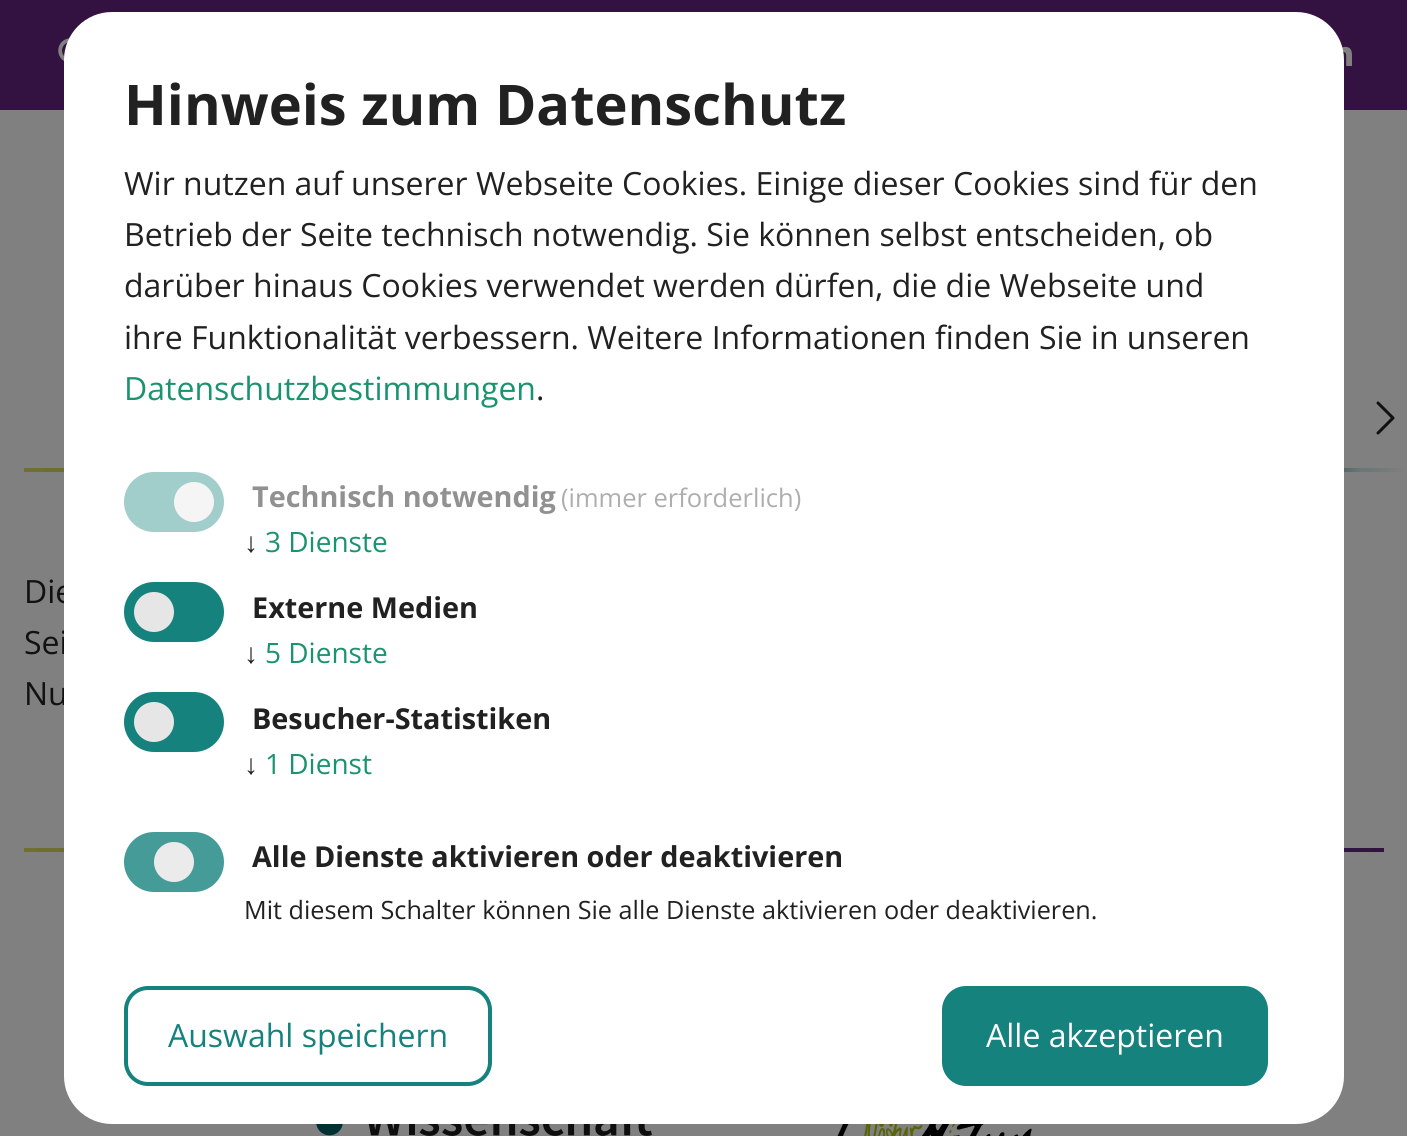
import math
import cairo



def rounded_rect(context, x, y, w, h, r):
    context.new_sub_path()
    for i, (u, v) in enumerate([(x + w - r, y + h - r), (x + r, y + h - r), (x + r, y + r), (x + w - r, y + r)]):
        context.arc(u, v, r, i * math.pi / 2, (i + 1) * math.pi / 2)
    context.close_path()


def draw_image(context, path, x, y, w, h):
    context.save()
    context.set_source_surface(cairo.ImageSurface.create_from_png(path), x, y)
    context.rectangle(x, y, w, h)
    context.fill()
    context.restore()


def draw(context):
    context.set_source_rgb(128 / 255, 128 / 255, 128 / 255)
    context.paint()
    context.set_source_rgb(51 / 255, 17 / 255, 65 / 255)
    context.rectangle(0, 0, 1407, 110)
    context.fill()
    draw_image(context, "images/1.png", 58, 38, 12, 23)
    draw_image(context, "images/2.png", 1342, 46, 10, 20)
    gradient = cairo.LinearGradient(24, 470, 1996, 470)
    gradient.add_color_stop_rgba(0, 111 / 255, 112 / 255, 48 / 255, 1)
    gradient.add_color_stop_rgba(0.33, 66 / 255, 95 / 255, 3 / 255, 1)
    gradient.add_color_stop_rgba(0.67, 13 / 255, 75 / 255, 73 / 255, 1)
    gradient.add_color_stop_rgba(1, 51 / 255, 17 / 255, 65 / 255, 1)
    context.set_source(gradient)
    context.rectangle(24, 468, 1383, 4)
    context.fill()
    gradient = cairo.LinearGradient(1308, 419, 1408, 419)
    gradient.add_color_stop_rgba(0, 128 / 255, 128 / 255, 128 / 255, 0)
    gradient.add_color_stop_rgba(0.5, 128 / 255, 128 / 255, 128 / 255, 0.8)
    gradient.add_color_stop_rgba(1, 128 / 255, 128 / 255, 128 / 255, 1)
    context.set_source(gradient)
    context.rectangle(1344, 468, 63, 4)
    context.fill()
    draw_image(context, "images/3.png", 1376, 401, 19, 34)
    gradient = cairo.LinearGradient(24, 850, 1384, 850)
    gradient.add_color_stop_rgba(0, 111 / 255, 112 / 255, 48 / 255, 1)
    gradient.add_color_stop_rgba(0.33, 66 / 255, 95 / 255, 3 / 255, 1)
    gradient.add_color_stop_rgba(0.67, 13 / 255, 75 / 255, 73 / 255, 1)
    gradient.add_color_stop_rgba(1, 51 / 255, 17 / 255, 65 / 255, 1)
    context.set_source(gradient)
    context.rectangle(24, 848, 1360, 4)
    context.fill()
    draw_image(context, "images/4.png", 316, 1124, 336, 12)
    draw_image(context, "images/5.png", 837, 1124, 195, 12)
    context.select_font_face("Open Sans")
    context.set_font_size(32)
    context.set_source_rgb(17 / 255, 17 / 255, 17 / 255)
    context.move_to(24, 603)
    context.show_text("Die")
    context.move_to(24, 654)
    context.show_text("Sei")
    context.move_to(24, 705)
    context.show_text("Nu")
    context.set_source_rgb(1, 1, 1)
    rounded_rect(context, 64, 12, 1280, 1112, 48)
    context.fill()
    context.select_font_face("Open Sans", cairo.FontSlant.NORMAL, cairo.FontWeight.BOLD)
    context.set_font_size(56)
    context.set_source_rgb(33 / 255, 33 / 255, 33 / 255)
    context.move_to(124, 125)
    context.show_text("Hinweis zum Datenschutz")
    context.select_font_face("Open Sans")
    context.set_font_size(32)
    context.move_to(124, 195)
    context.show_text("Wir nutzen auf unserer Webseite Cookies. Einige dieser Cookies sind für den")
    context.move_to(124, 246)
    context.show_text("Betrieb der Seite technisch notwendig. Sie können selbst entscheiden, ob")
    context.move_to(124, 297)
    context.show_text("darüber hinaus Cookies verwendet werden dürfen, die die Webseite und")
    context.move_to(124, 349)
    context.show_text("ihre Funktionalität verbessern. Weitere Informationen finden Sie in unseren")
    context.set_source_rgb(26 / 255, 147 / 255, 111 / 255)
    context.move_to(124, 400)
    context.show_text("Datenschutzbestimmungen")
    context.set_source_rgb(33 / 255, 33 / 255, 33 / 255)
    context.move_to(536, 400)
    context.show_text(".")
    context.set_source_rgb(161 / 255, 205 / 255, 203 / 255)
    rounded_rect(context, 124, 472, 100, 60, 30)
    context.fill()
    context.set_source_rgb(245 / 255, 245 / 255, 245 / 255)
    context.arc(194, 502, 20, 0, 2 * math.pi)
    context.fill()
    context.select_font_face("Open Sans", cairo.FontSlant.NORMAL, cairo.FontWeight.BOLD)
    context.set_font_size(28.8)
    context.set_source_rgb(145 / 255, 145 / 255, 145 / 255)
    context.move_to(252, 507)
    context.show_text("Technisch notwendig")
    context.select_font_face("Open Sans")
    context.set_font_size(25.5)
    context.set_source_rgb(174 / 255, 174 / 255, 174 / 255)
    context.move_to(561, 507)
    context.show_text("(immer erforderlich)")
    context.select_font_face("Liberation Sans")
    context.set_font_size(28)
    context.set_source_rgb(33 / 255, 33 / 255, 33 / 255)
    context.move_to(244, 552)
    context.show_text("↓")
    context.select_font_face("Open Sans")
    context.set_source_rgb(26 / 255, 147 / 255, 111 / 255)
    context.move_to(265, 552)
    context.show_text("3 Dienste")
    context.set_source_rgb(21 / 255, 130 / 255, 126 / 255)
    rounded_rect(context, 124, 582, 100, 60, 30)
    context.fill()
    context.set_source_rgb(230 / 255, 230 / 255, 230 / 255)
    context.arc(154, 612, 20, 0, 2 * math.pi)
    context.fill()
    context.select_font_face("Open Sans", cairo.FontSlant.NORMAL, cairo.FontWeight.BOLD)
    context.set_font_size(28.8)
    context.set_source_rgb(33 / 255, 33 / 255, 33 / 255)
    context.move_to(252, 618)
    context.show_text("Externe Medien")
    context.select_font_face("Liberation Sans")
    context.set_font_size(28)
    context.move_to(244, 663)
    context.show_text("↓")
    context.select_font_face("Open Sans")
    context.set_source_rgb(26 / 255, 147 / 255, 111 / 255)
    context.move_to(265, 663)
    context.show_text("5 Dienste")
    context.set_source_rgb(21 / 255, 130 / 255, 126 / 255)
    rounded_rect(context, 124, 692, 100, 60, 30)
    context.fill()
    context.set_source_rgb(230 / 255, 230 / 255, 230 / 255)
    context.arc(154, 722, 20, 0, 2 * math.pi)
    context.fill()
    context.select_font_face("Open Sans", cairo.FontSlant.NORMAL, cairo.FontWeight.BOLD)
    context.set_font_size(28.8)
    context.set_source_rgb(33 / 255, 33 / 255, 33 / 255)
    context.move_to(252, 729)
    context.show_text("Besucher-Statistiken")
    context.select_font_face("Liberation Sans")
    context.set_font_size(28)
    context.move_to(244, 774)
    context.show_text("↓")
    context.select_font_face("Open Sans")
    context.set_source_rgb(26 / 255, 147 / 255, 111 / 255)
    context.move_to(265, 774)
    context.show_text("1 Dienst")
    context.set_source_rgb(68 / 255, 155 / 255, 152 / 255)
    rounded_rect(context, 124, 832, 100, 60, 30)
    context.fill()
    context.set_source_rgb(235 / 255, 235 / 255, 235 / 255)
    context.arc(174, 862, 20, 0, 2 * math.pi)
    context.fill()
    context.select_font_face("Open Sans", cairo.FontSlant.NORMAL, cairo.FontWeight.BOLD)
    context.set_font_size(28.8)
    context.set_source_rgb(33 / 255, 33 / 255, 33 / 255)
    context.move_to(252, 867)
    context.show_text("Alle Dienste aktivieren oder deaktivieren")
    context.select_font_face("Open Sans")
    context.set_font_size(25.2)
    context.move_to(244, 919)
    context.show_text("Mit diesem Schalter können Sie alle Dienste aktivieren oder deaktivieren.")
    rounded_rect(context, 126, 988, 364, 96, 22)
    context.set_source_rgb(21 / 255, 130 / 255, 126 / 255)
    context.set_line_width(4)
    context.stroke()
    context.set_font_size(32)
    context.move_to(168, 1047)
    context.show_text("Auswahl speichern")
    rounded_rect(context, 944, 988, 322, 96, 22)
    context.fill_preserve()
    context.stroke()
    context.set_source_rgb(1, 1, 1)
    context.move_to(986, 1047)
    context.show_text("Alle akzeptieren")


surface = cairo.ImageSurface(cairo.Format.RGB24, 1407, 1136)
context = cairo.Context(surface)
options = cairo.FontOptions()
options.set_hint_metrics(cairo.HintMetrics.OFF)
options.set_hint_style(cairo.HintStyle.NONE)
context.set_font_options(options)
context.set_miter_limit(4)
draw(context)
surface.write_to_png("out.png")
